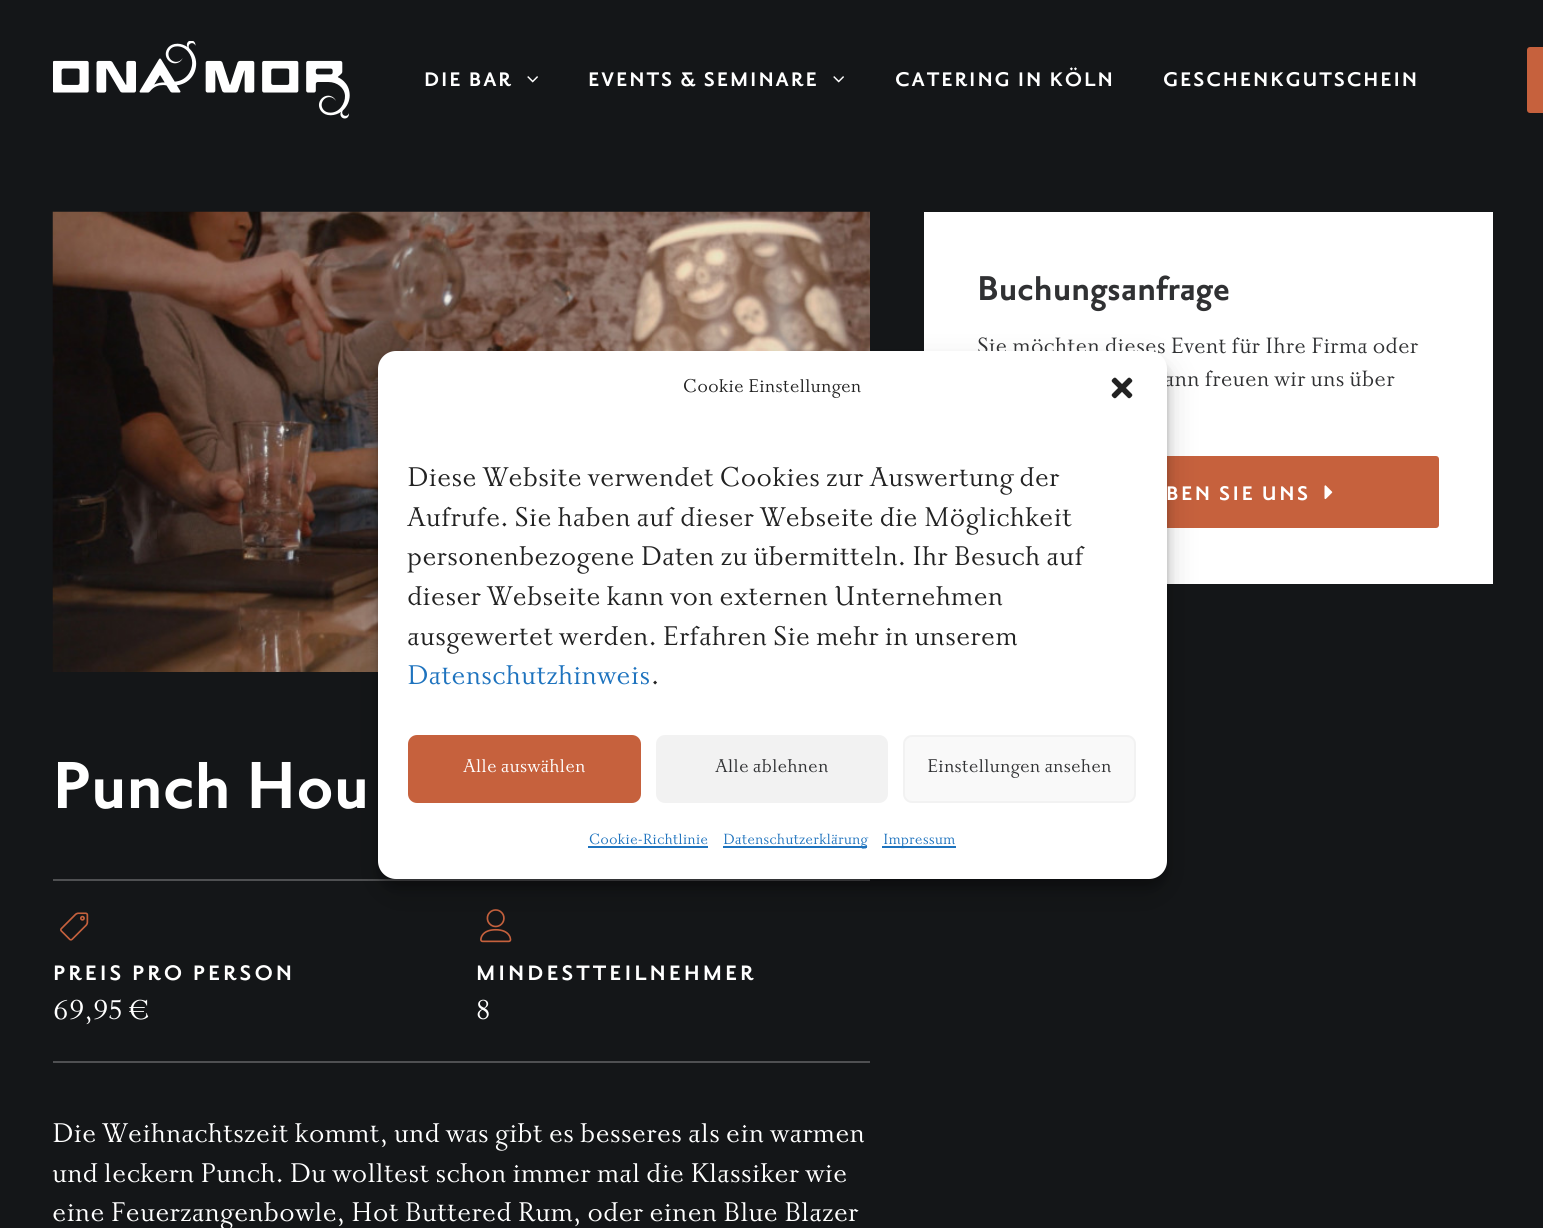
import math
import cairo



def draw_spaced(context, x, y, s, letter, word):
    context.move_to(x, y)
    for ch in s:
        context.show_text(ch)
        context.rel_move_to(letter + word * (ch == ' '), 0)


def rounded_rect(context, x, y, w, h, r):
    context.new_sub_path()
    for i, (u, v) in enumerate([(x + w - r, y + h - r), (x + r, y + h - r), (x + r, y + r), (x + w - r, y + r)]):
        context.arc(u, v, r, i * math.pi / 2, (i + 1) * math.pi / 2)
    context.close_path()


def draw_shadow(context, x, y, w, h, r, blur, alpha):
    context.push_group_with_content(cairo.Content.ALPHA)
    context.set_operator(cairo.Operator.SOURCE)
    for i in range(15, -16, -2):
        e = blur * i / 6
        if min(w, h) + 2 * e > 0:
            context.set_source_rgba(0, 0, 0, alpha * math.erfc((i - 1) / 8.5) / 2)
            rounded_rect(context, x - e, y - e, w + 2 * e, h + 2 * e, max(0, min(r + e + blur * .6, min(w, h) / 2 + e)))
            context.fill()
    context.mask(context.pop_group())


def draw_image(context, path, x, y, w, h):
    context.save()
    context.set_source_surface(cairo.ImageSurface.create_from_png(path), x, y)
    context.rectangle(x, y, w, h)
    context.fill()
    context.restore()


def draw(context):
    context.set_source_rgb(20 / 255, 22 / 255, 24 / 255)
    context.paint()
    draw_image(context, "images/1.png", 53, 41, 297, 78)
    draw_image(context, "images/2.png", 527, 76, 11, 7)
    draw_image(context, "images/2.png", 833, 76, 11, 7)
    context.set_source_rgb(198 / 255, 97 / 255, 61 / 255)
    rounded_rect(context, 1528, 48, 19, 64, 2)
    context.fill_preserve()
    context.stroke()
    context.set_source_rgb(1, 1, 1)
    context.rectangle(924, 212, 569, 372)
    context.fill()
    context.set_source_rgb(198 / 255, 97 / 255, 61 / 255)
    rounded_rect(context, 979, 457, 459, 70, 2)
    context.fill_preserve()
    context.stroke()
    draw_image(context, "images/3.png", 1324, 485, 9, 15)
    draw_image(context, "images/4.png", 52, 211, 818, 461)
    context.set_source_rgb(79 / 255, 80 / 255, 82 / 255)
    context.rectangle(53, 879, 817, 2)
    context.fill()
    draw_image(context, "images/5.png", 60, 912, 29, 29)
    draw_image(context, "images/6.png", 480, 909, 32, 34)
    context.rectangle(53, 1061, 817, 2)
    context.fill()
    context.set_source_rgb(0, 0, 0)
    draw_shadow(context, 378, 360, 789, 528, 18, 4.5, 0.23)
    draw_shadow(context, 378, 366, 789, 528, 18, 15, 0.19)
    context.select_font_face("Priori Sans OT", cairo.FontSlant.NORMAL, cairo.FontWeight.BOLD)
    context.set_font_size(24)
    context.set_source_rgb(1, 1, 1)
    draw_spaced(context, 424, 86, "DIE BAR", 1.9, 0)
    draw_spaced(context, 588, 86, "EVENTS & SEMINARE", 1.9, 0)
    draw_spaced(context, 895, 86, "CATERING IN KÖLN", 1.9, 0)
    draw_spaced(context, 1163, 86, "GESCHENKGUTSCHEIN", 1.9, 0)
    context.set_font_size(42)
    context.set_source_rgb(48 / 255, 49 / 255, 51 / 255)
    context.move_to(977, 300)
    context.show_text("Buchungsanfrage")
    context.select_font_face("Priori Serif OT")
    context.set_font_size(27)
    context.move_to(977, 353)
    context.show_text("Sie möchten dieses Event für Ihre Firma oder")
    context.move_to(1164, 386)
    context.show_text("ann freuen wir uns über")
    context.select_font_face("Priori Sans OT", cairo.FontSlant.NORMAL, cairo.FontWeight.BOLD)
    context.set_font_size(24)
    context.set_source_rgb(1, 1, 1)
    draw_spaced(context, 1166, 500, "BEN SIE UNS", 2.4, 0)
    context.set_font_size(81)
    context.move_to(52, 808)
    context.show_text("Punch Hou")
    context.set_font_size(25.5)
    draw_spaced(context, 53, 980, "PREIS PRO PERSON", 3, 0)
    context.select_font_face("Priori Serif OT")
    context.set_font_size(33)
    context.move_to(53, 1019)
    context.show_text("69,95 €")
    context.select_font_face("Priori Sans OT", cairo.FontSlant.NORMAL, cairo.FontWeight.BOLD)
    context.set_font_size(25.5)
    draw_spaced(context, 476, 980, "MINDESTTEILNEHMER", 3, 0)
    context.select_font_face("Priori Serif OT")
    context.set_font_size(33)
    context.move_to(476, 1019)
    context.show_text("8")
    context.move_to(52, 1142)
    context.show_text("Die Weihnachtszeit kommt, und was gibt es besseres als ein warmen")
    context.move_to(52, 1182)
    context.show_text("und leckern Punch. Du wolltest schon immer mal die Klassiker wie")
    context.move_to(52, 1221)
    context.show_text("eine Feuerzangenbowle, Hot Buttered Rum, oder einen Blue Blazer")
    rounded_rect(context, 378, 351, 789, 528, 18)
    context.fill()
    context.set_font_size(22.5)
    context.set_source_rgb(34 / 255, 34 / 255, 34 / 255)
    context.move_to(683, 392)
    context.show_text("Cookie Einstellungen")
    draw_image(context, "images/7.png", 1111, 377, 22, 22)
    context.set_font_size(33)
    context.move_to(407, 486)
    context.show_text("Diese Website verwendet Cookies zur Auswertung der")
    context.move_to(407, 526)
    context.show_text("Aufrufe. Sie haben auf dieser Webseite die Möglichkeit")
    context.move_to(407, 565)
    context.show_text("personenbezogene Daten zu übermitteln. Ihr Besuch auf")
    context.move_to(407, 605)
    context.show_text("dieser Webseite kann von externen Unternehmen")
    context.move_to(407, 645)
    context.show_text("ausgewertet werden. Erfahren Sie mehr in unserem")
    context.set_source_rgb(30 / 255, 115 / 255, 190 / 255)
    context.move_to(407, 684)
    context.show_text("Datenschutzhinweis")
    context.set_source_rgb(34 / 255, 34 / 255, 34 / 255)
    context.move_to(651, 684)
    context.show_text(".")
    context.set_source_rgb(198 / 255, 97 / 255, 61 / 255)
    rounded_rect(context, 409, 736, 231, 66, 8)
    context.fill_preserve()
    context.stroke()
    context.set_font_size(22.5)
    context.set_source_rgb(1, 1, 1)
    context.move_to(463, 772)
    context.show_text("Alle auswählen")
    context.set_source_rgb(242 / 255, 242 / 255, 242 / 255)
    rounded_rect(context, 657, 736, 230, 66, 8)
    context.fill_preserve()
    context.stroke()
    context.set_source_rgb(48 / 255, 49 / 255, 51 / 255)
    context.move_to(715, 772)
    context.show_text("Alle ablehnen")
    context.set_source_rgb(249 / 255, 249 / 255, 249 / 255)
    rounded_rect(context, 904, 736, 231, 66, 8)
    context.fill_preserve()
    context.set_source_rgb(242 / 255, 242 / 255, 242 / 255)
    context.stroke()
    context.set_source_rgb(48 / 255, 49 / 255, 51 / 255)
    context.move_to(927, 772)
    context.show_text("Einstellungen ansehen")
    context.set_font_size(18)
    context.set_source_rgb(30 / 255, 115 / 255, 190 / 255)
    context.move_to(589, 844)
    context.show_text("Cookie-Richtlinie")
    context.rectangle(588, 846, 120, 2)
    context.fill()
    context.rectangle(723, 846, 144, 2)
    context.fill()
    context.move_to(723, 844)
    context.show_text("Datenschutzerklärung")
    context.rectangle(882, 846, 74, 2)
    context.fill()
    context.move_to(883, 844)
    context.show_text("Impressum")


surface = cairo.ImageSurface(cairo.Format.RGB24, 1543, 1228)
context = cairo.Context(surface)
options = cairo.FontOptions()
options.set_hint_metrics(cairo.HintMetrics.OFF)
options.set_hint_style(cairo.HintStyle.NONE)
context.set_font_options(options)
context.set_miter_limit(4)
draw(context)
surface.write_to_png("out.png")
